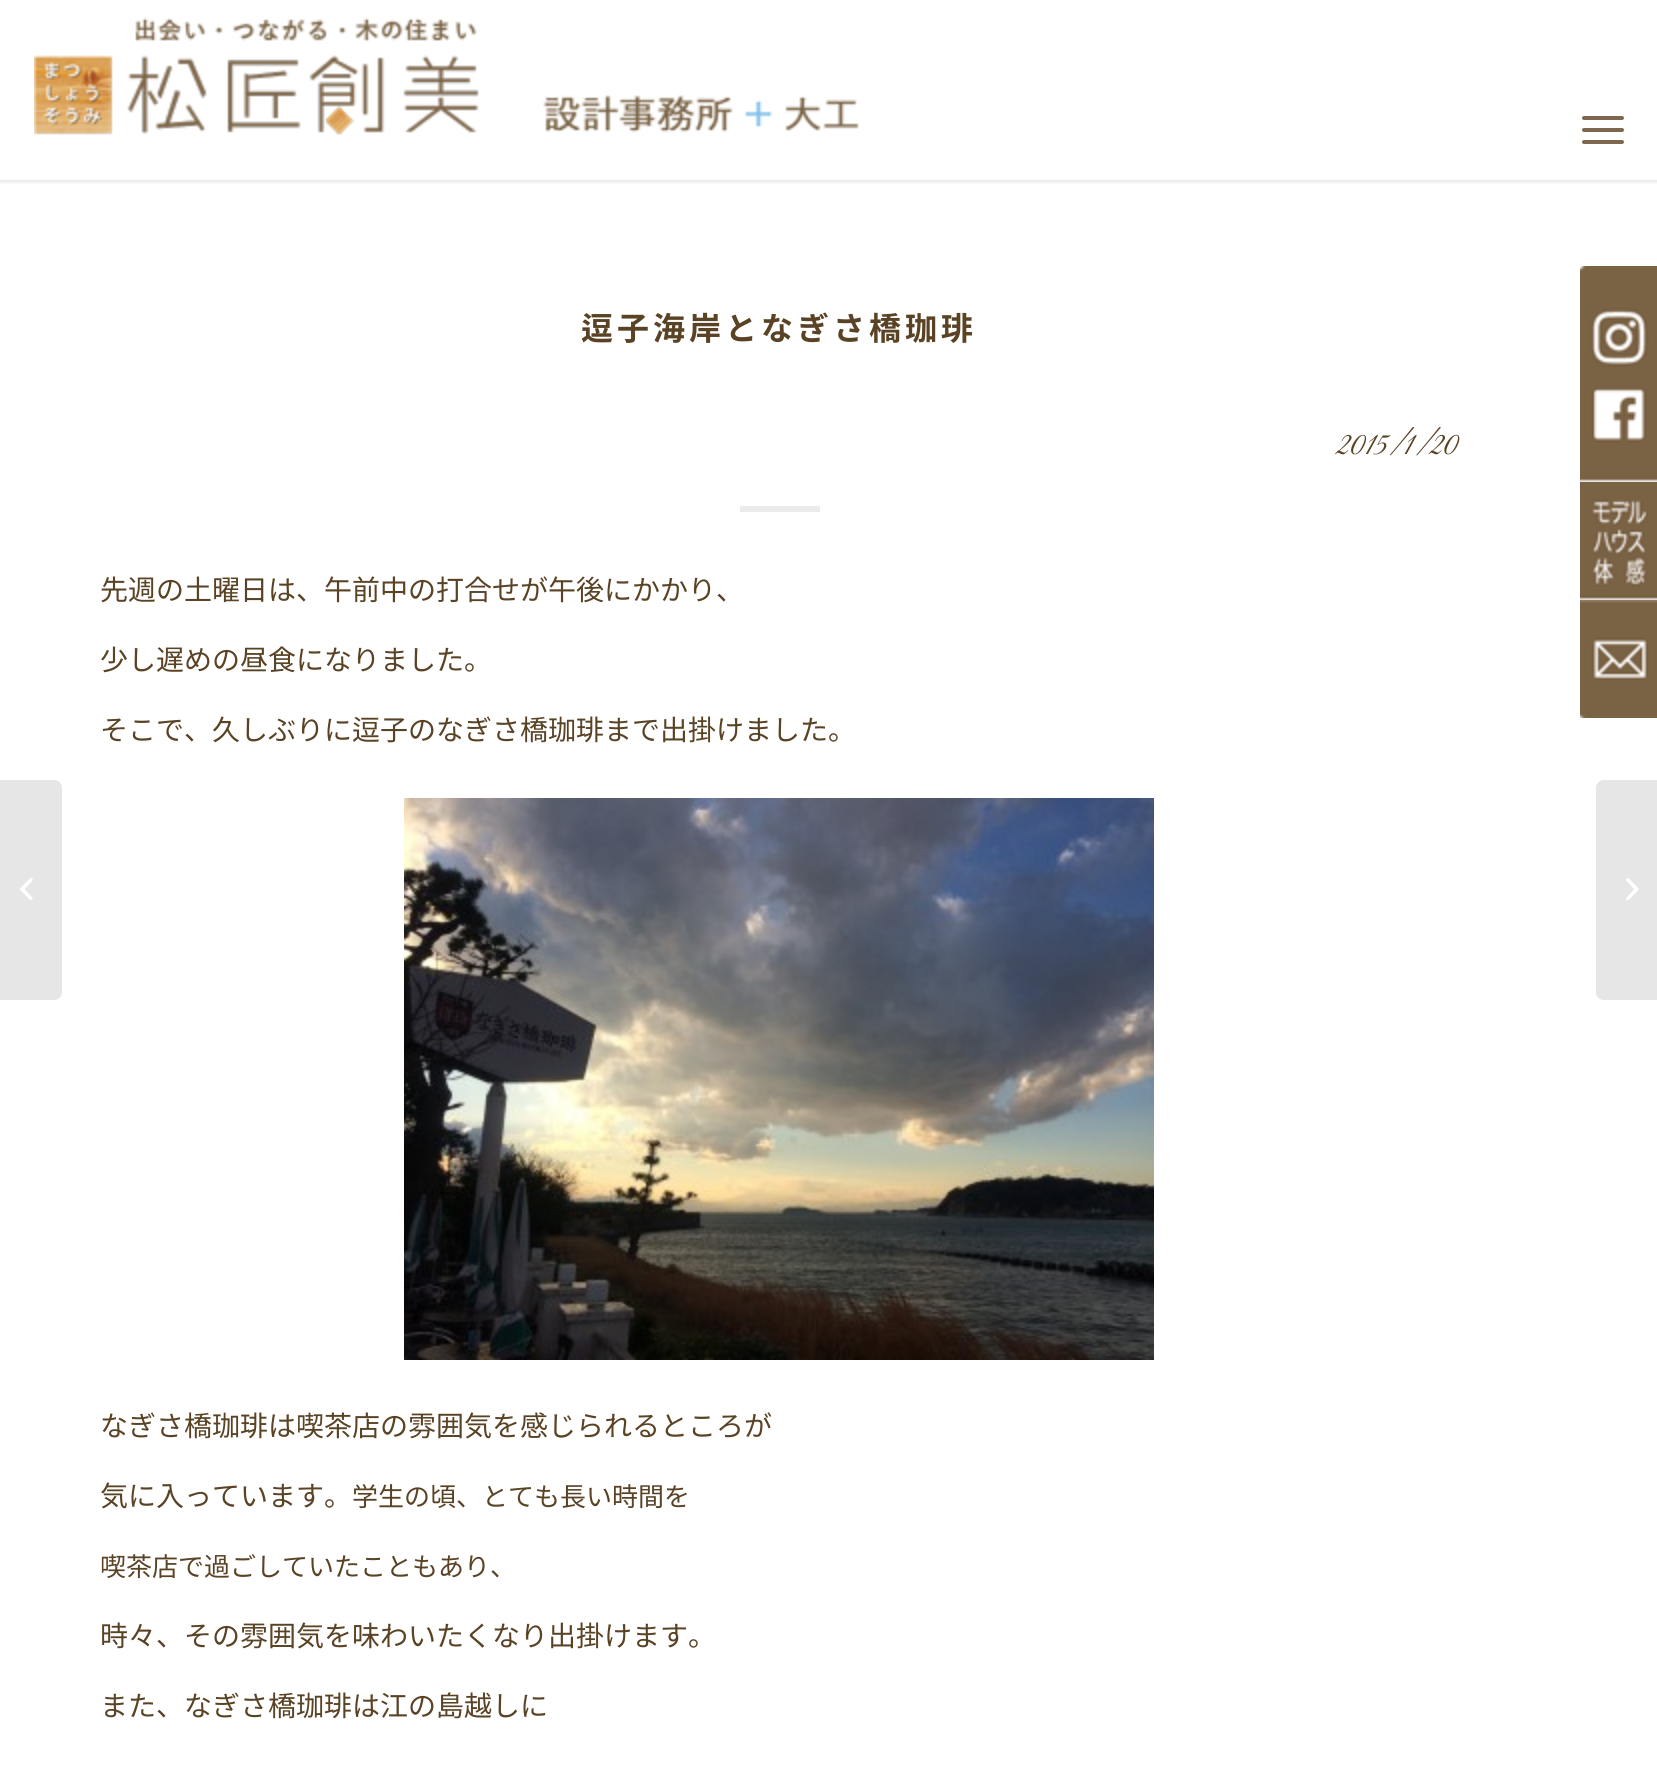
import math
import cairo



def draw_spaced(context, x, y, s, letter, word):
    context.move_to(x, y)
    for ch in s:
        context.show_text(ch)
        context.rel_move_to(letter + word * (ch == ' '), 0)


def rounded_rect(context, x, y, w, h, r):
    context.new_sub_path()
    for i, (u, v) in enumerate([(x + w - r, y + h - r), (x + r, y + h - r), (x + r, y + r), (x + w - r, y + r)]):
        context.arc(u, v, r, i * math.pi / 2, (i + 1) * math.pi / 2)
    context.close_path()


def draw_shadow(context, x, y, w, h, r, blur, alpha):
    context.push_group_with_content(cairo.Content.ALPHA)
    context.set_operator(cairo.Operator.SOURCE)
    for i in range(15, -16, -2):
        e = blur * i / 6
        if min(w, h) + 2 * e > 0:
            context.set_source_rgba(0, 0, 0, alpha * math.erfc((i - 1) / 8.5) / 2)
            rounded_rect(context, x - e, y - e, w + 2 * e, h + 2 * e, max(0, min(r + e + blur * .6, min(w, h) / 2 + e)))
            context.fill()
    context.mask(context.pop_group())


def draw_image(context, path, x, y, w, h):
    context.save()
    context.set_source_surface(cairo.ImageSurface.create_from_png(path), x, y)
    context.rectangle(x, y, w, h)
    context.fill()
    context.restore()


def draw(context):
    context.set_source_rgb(1, 1, 1)
    context.paint()
    context.save()
    context.rectangle(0, 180, 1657, 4)
    context.clip()
    context.set_source_rgb(0, 0, 0)
    draw_shadow(context, -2, -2, 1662, 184, 0, 2, 0.1)
    context.restore()
    draw_image(context, "images/1.png", 34, 17, 825, 118)
    context.set_source_rgb(125 / 255, 103 / 255, 79 / 255)
    rounded_rect(context, 1582, 128, 42, 4, 2)
    context.fill()
    rounded_rect(context, 1582, 116, 42, 4, 2)
    context.fill()
    rounded_rect(context, 1582, 140, 42, 4, 2)
    context.fill()
    draw_image(context, "images/2.png", 1580, 266, 77, 110)
    draw_image(context, "images/3.png", 1580, 376, 77, 106)
    draw_image(context, "images/4.png", 1580, 482, 77, 118)
    draw_image(context, "images/5.png", 1580, 600, 77, 118)
    context.set_source_rgb(230 / 255, 230 / 255, 230 / 255)
    context.new_path()
    context.move_to(0, 780)
    context.line_to(54, 780)
    context.curve_to(58.5, 780, 62, 783.5, 62, 788)
    context.line_to(62, 992)
    context.curve_to(62, 996.5, 58.5, 1000, 54, 1000)
    context.line_to(0, 1000)
    context.close_path()
    context.fill()
    draw_image(context, "images/6.png", 20, 878, 13, 22)
    context.set_source_rgb(235 / 255, 235 / 255, 235 / 255)
    context.rectangle(740, 506, 80, 6)
    context.fill()
    draw_image(context, "images/7.png", 404, 798, 750, 562)
    context.set_source_rgb(230 / 255, 230 / 255, 230 / 255)
    context.new_path()
    context.move_to(1604, 780)
    context.line_to(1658, 780)
    context.line_to(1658, 1000)
    context.line_to(1604, 1000)
    context.curve_to(1599.5, 1000, 1596, 996.5, 1596, 992)
    context.line_to(1596, 788)
    context.curve_to(1596, 783.5, 1599.5, 780, 1604, 780)
    context.close_path()
    context.fill()
    draw_image(context, "images/8.png", 1626, 878, 13, 23)
    context.select_font_face("Noto Sans CJK JP", cairo.FontSlant.NORMAL, cairo.FontWeight.BOLD)
    context.set_font_size(32)
    context.set_source_rgb(90 / 255, 67 / 255, 37 / 255)
    draw_spaced(context, 581, 340, "逗子海岸となぎさ橋珈琲", 4, 0)
    context.select_font_face("Great Vibes")
    context.set_font_size(33)
    context.move_to(1337, 454)
    context.show_text("2015/1/20")
    context.select_font_face("Noto Sans CJK JP")
    context.set_font_size(28)
    context.move_to(100, 600)
    context.show_text("先週の土曜日は、午前中の打合せが午後にかかり、")
    context.move_to(100, 670)
    context.show_text("少し遅めの昼食になりました。")
    context.move_to(100, 740)
    context.show_text("そこで、久しぶりに逗子のなぎさ橋珈琲まで出掛けました。")
    context.move_to(100, 1436)
    context.show_text("なぎさ橋珈琲は喫茶店の雰囲気を感じられるところが")
    context.move_to(100, 1506)
    context.show_text("気に入っています。")
    context.set_font_size(26)
    context.move_to(352, 1506)
    context.show_text("学生の頃、とても長い時間を")
    context.move_to(100, 1576)
    context.show_text("喫茶店で過ごしていたこともあり、")
    context.set_font_size(28)
    context.move_to(100, 1646)
    context.show_text("時々、その雰囲気を味わいたくなり出掛けます。")
    context.move_to(100, 1716)
    context.show_text("また、なぎさ橋珈琲は江の島越しに")


surface = cairo.ImageSurface(cairo.Format.RGB24, 1657, 1778)
context = cairo.Context(surface)
options = cairo.FontOptions()
options.set_hint_metrics(cairo.HintMetrics.OFF)
options.set_hint_style(cairo.HintStyle.NONE)
context.set_font_options(options)
context.set_miter_limit(4)
draw(context)
surface.write_to_png("out.png")
